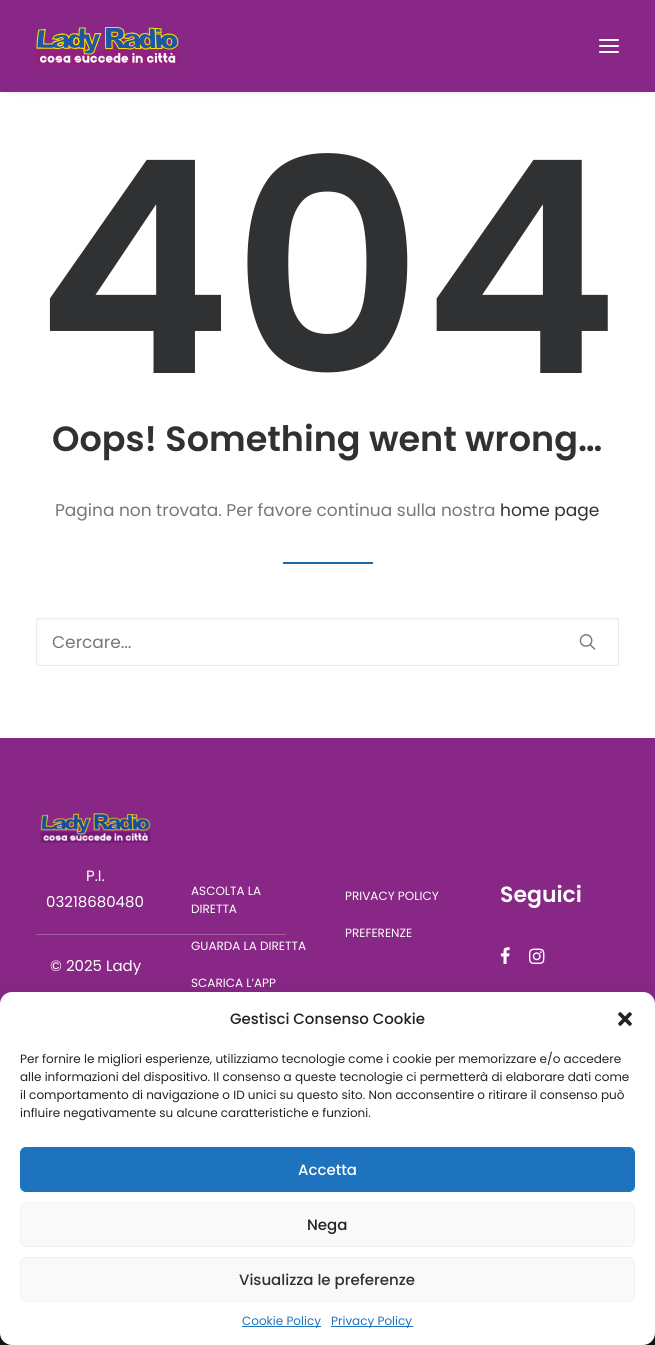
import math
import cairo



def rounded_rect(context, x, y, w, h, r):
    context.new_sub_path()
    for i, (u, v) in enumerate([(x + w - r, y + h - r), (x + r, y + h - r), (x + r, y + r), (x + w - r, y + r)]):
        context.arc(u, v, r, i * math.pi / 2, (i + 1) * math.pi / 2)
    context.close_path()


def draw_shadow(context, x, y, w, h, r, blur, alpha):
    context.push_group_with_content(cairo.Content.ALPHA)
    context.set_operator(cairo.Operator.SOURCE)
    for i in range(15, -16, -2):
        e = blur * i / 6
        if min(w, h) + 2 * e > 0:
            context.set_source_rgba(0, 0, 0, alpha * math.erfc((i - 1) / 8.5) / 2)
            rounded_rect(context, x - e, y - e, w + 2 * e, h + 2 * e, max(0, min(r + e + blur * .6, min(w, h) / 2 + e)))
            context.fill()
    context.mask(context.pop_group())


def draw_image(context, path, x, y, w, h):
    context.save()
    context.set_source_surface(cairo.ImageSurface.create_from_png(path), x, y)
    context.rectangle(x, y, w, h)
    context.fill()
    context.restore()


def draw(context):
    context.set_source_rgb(1, 1, 1)
    context.paint()
    context.set_source_rgb(0, 0, 0)
    draw_shadow(context, 10, 14, 635, 72, 0, 5, 0.6)
    context.set_source_rgb(136 / 255, 39 / 255, 134 / 255)
    context.rectangle(0, 0, 655, 92)
    context.fill()
    draw_image(context, "images/1.png", 36, 27, 143, 38)
    context.set_source_rgb(1, 1, 1)
    rounded_rect(context, 599, 45, 20, 2, 1)
    context.fill()
    rounded_rect(context, 599, 39, 20, 2, 1)
    context.fill()
    rounded_rect(context, 599, 51, 20, 2, 1)
    context.fill()
    context.set_source_rgb(37 / 255, 99 / 255, 172 / 255)
    context.rectangle(283, 562, 90, 2)
    context.fill()
    context.set_source_rgb(249 / 255, 249 / 255, 249 / 255)
    context.new_path()
    context.move_to(38, 621)
    context.line_to(617, 621)
    context.curve_to(618, 621, 618, 621, 618, 622)
    context.line_to(618, 620)
    context.curve_to(618, 619, 618, 619, 617, 619)
    context.line_to(38, 619)
    context.curve_to(37, 619, 37, 619, 37, 620)
    context.line_to(37, 622)
    context.curve_to(37, 621, 37, 621, 38, 621)
    context.close_path()
    context.fill()
    rounded_rect(context, 36.5, 618.5, 582, 47, 1.5)
    context.set_source_rgb(234 / 255, 234 / 255, 234 / 255)
    context.set_line_width(1)
    context.stroke()
    draw_image(context, "images/2.png", 579, 634, 17, 16)
    context.set_source_rgb(136 / 255, 39 / 255, 134 / 255)
    context.rectangle(0, 738, 655, 266)
    context.fill()
    draw_image(context, "images/3.png", 40, 813, 111, 30)
    context.set_source_rgb(166 / 255, 93 / 255, 164 / 255)
    context.rectangle(36, 934, 250, 1)
    context.fill()
    draw_image(context, "images/4.png", 500, 947, 10, 17)
    draw_image(context, "images/5.png", 529, 948, 16, 16)
    context.set_source_rgb(20 / 255, 22 / 255, 24 / 255)
    context.rectangle(0, 1333, 655, 12)
    context.fill()
    context.set_source_rgb(0, 0, 0)
    draw_shadow(context, 0, 998, 655, 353, 12, 3, 0.23)
    draw_shadow(context, 0, 1002, 655, 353, 12, 10, 0.19)
    context.set_source_rgb(1, 1, 1)
    rounded_rect(context, 0, 992, 655, 353, 12)
    context.fill()
    draw_image(context, "images/6.png", 618, 1012, 14, 14)
    context.set_source_rgb(30 / 255, 115 / 255, 190 / 255)
    rounded_rect(context, 20.5, 1147.5, 614, 44, 5.5)
    context.fill_preserve()
    context.stroke()
    context.set_source_rgb(249 / 255, 249 / 255, 249 / 255)
    rounded_rect(context, 20.5, 1202.5, 614, 44, 5.5)
    context.fill_preserve()
    context.set_source_rgb(242 / 255, 242 / 255, 242 / 255)
    context.stroke()
    context.set_source_rgb(249 / 255, 249 / 255, 249 / 255)
    rounded_rect(context, 20.5, 1257.5, 614, 44, 5.5)
    context.fill_preserve()
    context.set_source_rgb(242 / 255, 242 / 255, 242 / 255)
    context.stroke()
    context.set_source_rgb(30 / 255, 115 / 255, 190 / 255)
    context.rectangle(242, 1326, 79, 1)
    context.fill()
    context.rectangle(331, 1326, 82, 1)
    context.fill()
    context.select_font_face("Poppins SemiBold")
    context.set_font_size(296)
    context.set_source_rgb(48 / 255, 49 / 255, 51 / 255)
    context.move_to(36, 373)
    context.show_text("404")
    context.set_font_size(35)
    context.move_to(52, 451)
    context.show_text("Oops! Something went wrong…")
    context.select_font_face("Poppins")
    context.set_font_size(17)
    context.set_source_rgb(119 / 255, 119 / 255, 119 / 255)
    context.move_to(55, 516)
    context.show_text("Pagina non trovata. Per favore continua sulla nostra")
    context.set_source_rgb(48 / 255, 49 / 255, 51 / 255)
    context.move_to(500, 516)
    context.show_text("home page")
    context.set_source_rgb(119 / 255, 119 / 255, 119 / 255)
    context.move_to(52, 648)
    context.show_text("Cercare...")
    context.set_font_size(15)
    context.set_source_rgb(1, 1, 1)
    context.move_to(86, 881)
    context.show_text("P.I.")
    context.move_to(46, 907)
    context.show_text("03218680480")
    context.move_to(50, 971)
    context.show_text("© 2025 Lady")
    context.set_font_size(12)
    context.move_to(191, 895)
    context.show_text("ASCOLTA LA")
    context.move_to(191, 913)
    context.show_text("DIRETTA")
    context.move_to(191, 950)
    context.show_text("GUARDA LA DIRETTA")
    context.move_to(191, 987)
    context.show_text("SCARICA L’APP")
    context.move_to(345, 900)
    context.show_text("PRIVACY POLICY")
    context.move_to(345, 937)
    context.show_text("PREFERENZE")
    context.select_font_face("Poppins SemiBold")
    context.set_font_size(22)
    context.move_to(500, 902)
    context.show_text("Seguici")
    context.select_font_face("Poppins Medium")
    context.set_font_size(15)
    context.set_source_rgb(34 / 255, 34 / 255, 34 / 255)
    context.move_to(230, 1024)
    context.show_text("Gestisci Consenso Cookie")
    context.select_font_face("Poppins")
    context.set_font_size(12)
    context.move_to(20, 1063)
    context.show_text("Per fornire le migliori esperienze, utilizziamo tecnologie come i cookie per memorizzare e/o accedere")
    context.move_to(20, 1081)
    context.show_text("alle informazioni del dispositivo. Il consenso a queste tecnologie ci permetterà di elaborare dati come")
    context.move_to(20, 1099)
    context.show_text("il comportamento di navigazione o ID unici su questo sito. Non acconsentire o ritirare il consenso può")
    context.move_to(20, 1117)
    context.show_text("influire negativamente su alcune caratteristiche e funzioni.")
    context.select_font_face("Poppins Medium")
    context.set_font_size(15)
    context.set_source_rgb(1, 1, 1)
    context.move_to(298, 1175)
    context.show_text("Accetta")
    context.set_source_rgb(34 / 255, 34 / 255, 34 / 255)
    context.move_to(307, 1230)
    context.show_text("Nega")
    context.set_source_rgb(48 / 255, 49 / 255, 51 / 255)
    context.move_to(239, 1285)
    context.show_text("Visualizza le preferenze")
    context.select_font_face("Poppins")
    context.set_font_size(12)
    context.set_source_rgb(30 / 255, 115 / 255, 190 / 255)
    context.move_to(242, 1325)
    context.show_text("Cookie Policy")
    context.move_to(331, 1325)
    context.show_text("Privacy Policy")


surface = cairo.ImageSurface(cairo.Format.RGB24, 655, 1345)
context = cairo.Context(surface)
options = cairo.FontOptions()
options.set_hint_metrics(cairo.HintMetrics.OFF)
options.set_hint_style(cairo.HintStyle.NONE)
context.set_font_options(options)
context.set_miter_limit(4)
draw(context)
surface.write_to_png("out.png")
